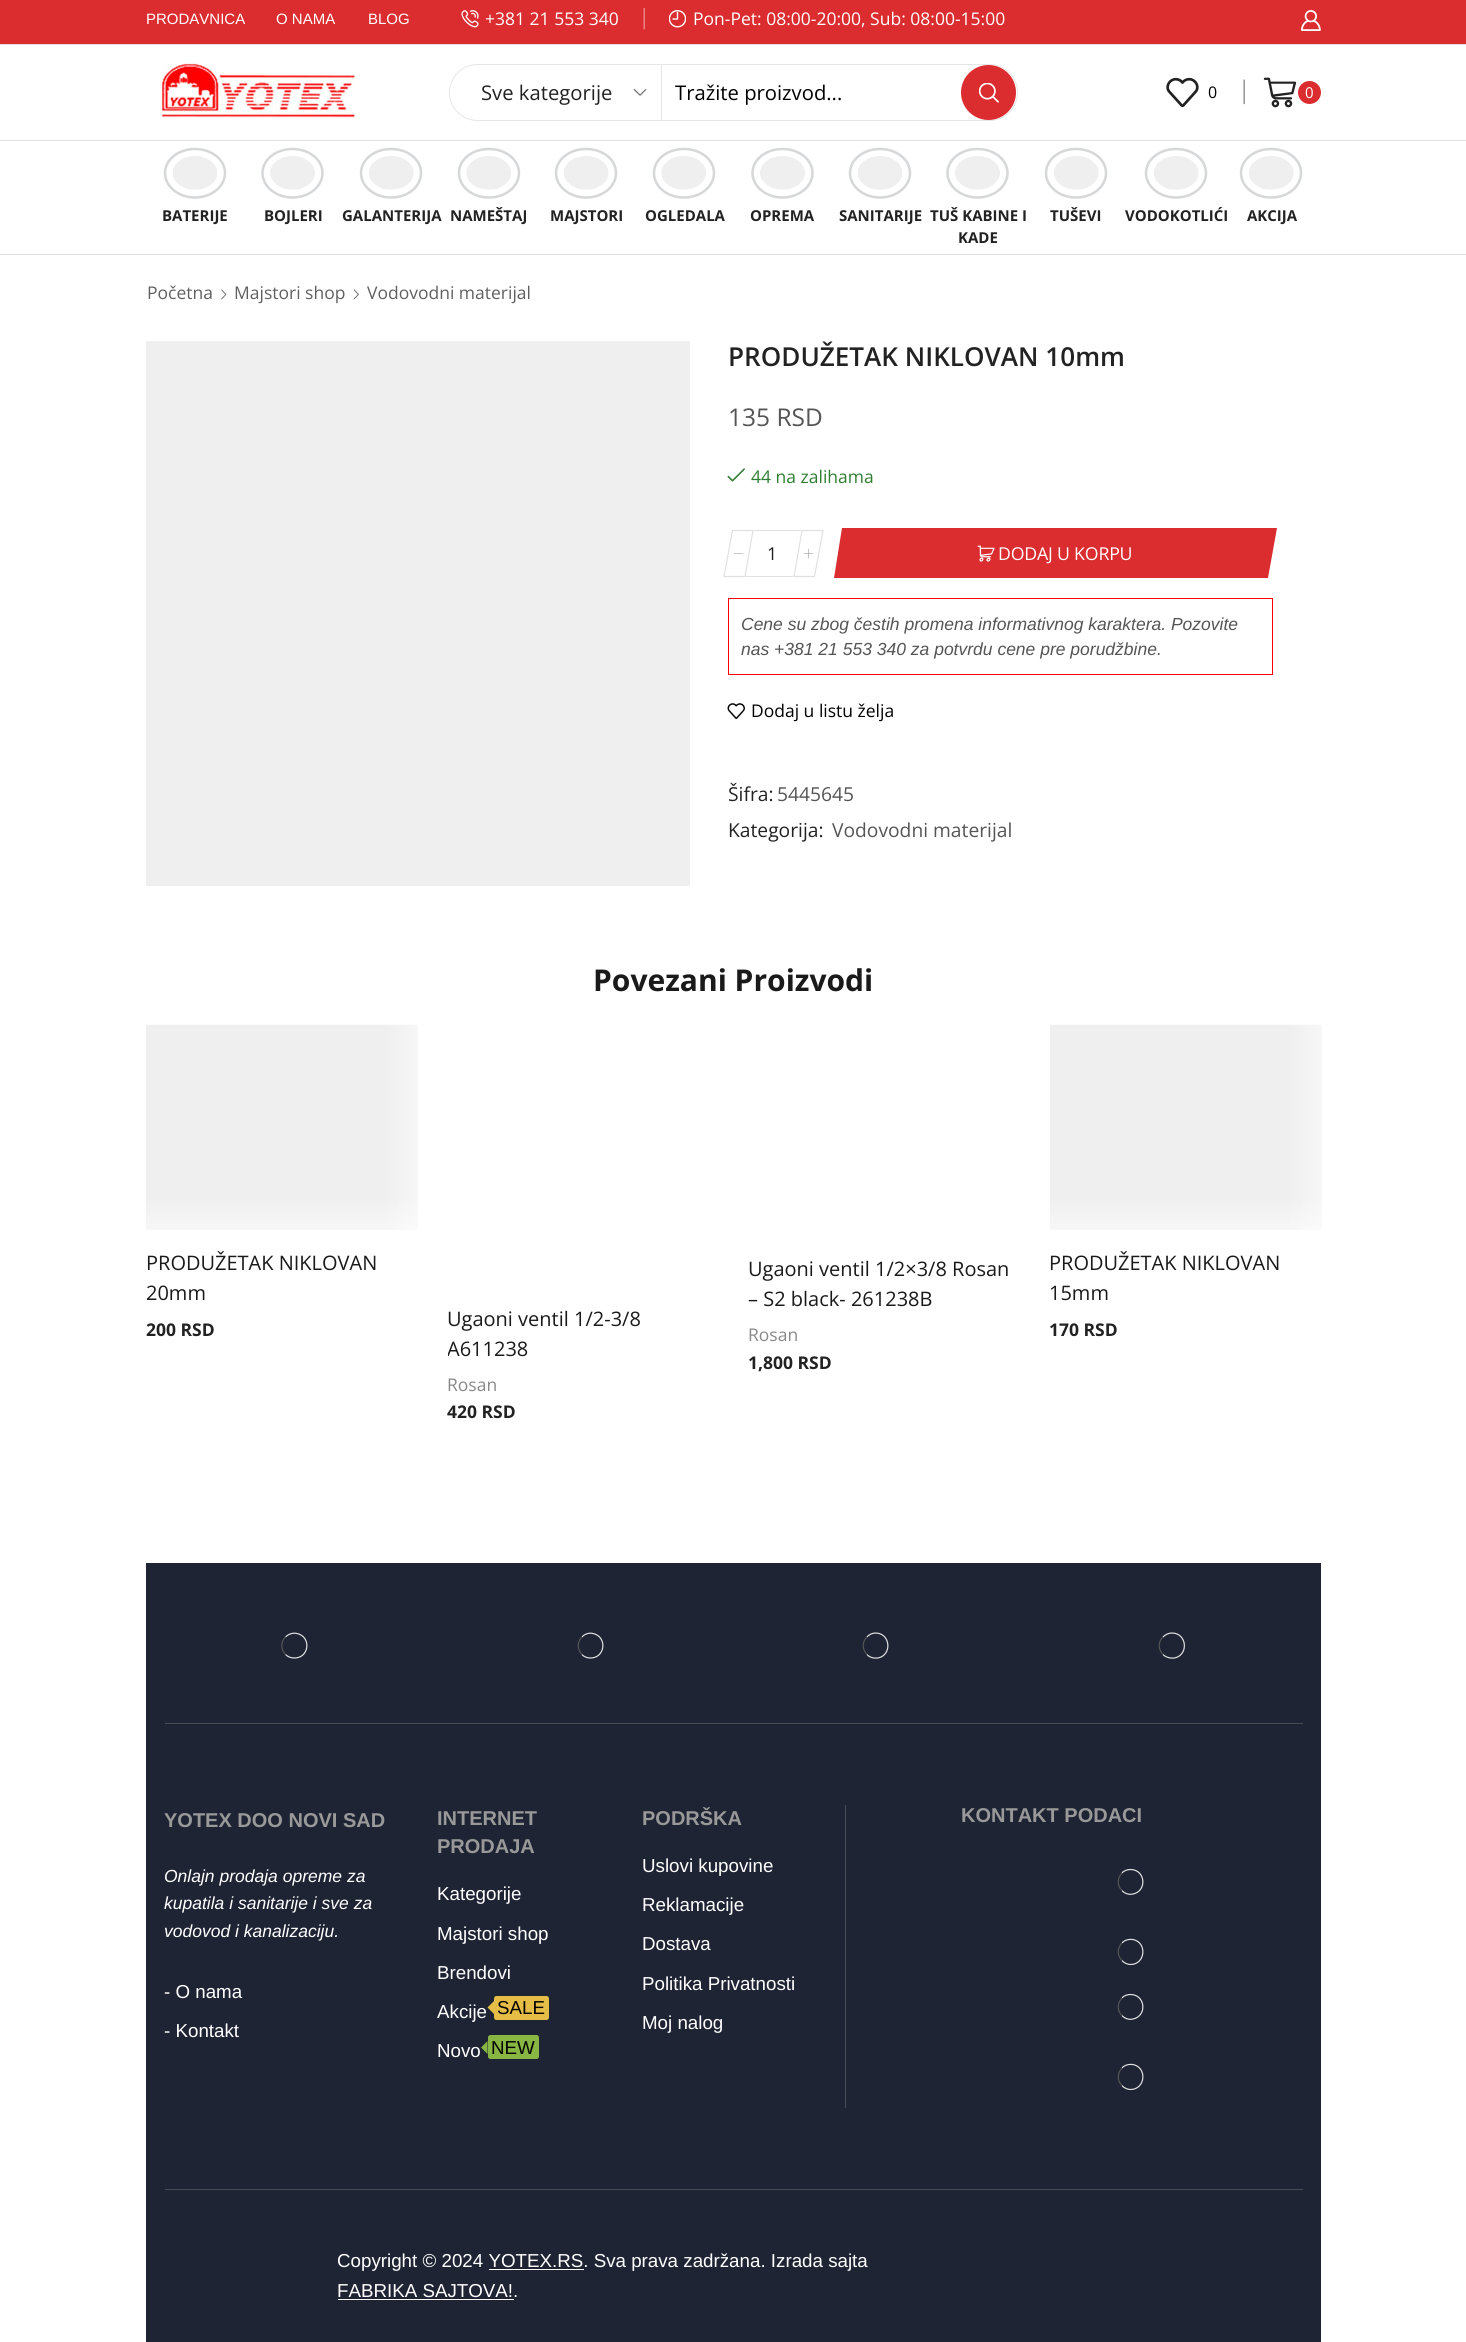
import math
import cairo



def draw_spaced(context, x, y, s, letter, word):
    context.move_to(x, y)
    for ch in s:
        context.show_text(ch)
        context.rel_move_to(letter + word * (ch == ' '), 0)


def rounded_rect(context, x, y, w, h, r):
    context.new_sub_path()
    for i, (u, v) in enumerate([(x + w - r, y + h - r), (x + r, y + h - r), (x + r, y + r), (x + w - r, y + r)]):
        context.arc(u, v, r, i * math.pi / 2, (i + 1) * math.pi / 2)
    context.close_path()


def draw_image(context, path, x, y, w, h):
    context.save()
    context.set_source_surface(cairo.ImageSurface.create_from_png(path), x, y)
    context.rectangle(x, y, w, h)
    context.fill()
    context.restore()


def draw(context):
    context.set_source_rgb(1, 1, 1)
    context.paint()
    context.set_source_rgb(219 / 255, 45 / 255, 47 / 255)
    context.rectangle(0, 0, 1466, 44)
    context.fill()
    context.set_source_rgb(225 / 255, 225 / 255, 225 / 255)
    context.rectangle(0, 44, 1466, 1)
    context.fill()
    draw_image(context, "images/1.png", 461, 10, 18, 18)
    draw_image(context, "images/2.png", 669, 10, 17, 18)
    draw_image(context, "images/3.png", 1301, 10, 20, 21)
    draw_image(context, "images/4.png", 161, 63, 197, 55)
    rounded_rect(context, 449.5, 64.5, 568, 56, 28)
    context.set_source_rgb(230 / 255, 230 / 255, 230 / 255)
    context.set_line_width(1)
    context.stroke()
    draw_image(context, "images/5.png", 633, 88, 14, 8)
    context.rectangle(661, 65, 1, 55)
    context.fill()
    context.set_source_rgb(219 / 255, 45 / 255, 47 / 255)
    context.arc(988.5, 92.5, 27.5, 0, 2 * math.pi)
    context.fill()
    draw_image(context, "images/6.png", 979, 83, 20, 20)
    draw_image(context, "images/7.png", 1166, 77, 33, 31)
    draw_image(context, "images/8.png", 1263, 77, 34, 31)
    context.arc(1309.5, 92.5, 11.5, 0, 2 * math.pi)
    context.fill()
    context.set_source_rgb(225 / 255, 225 / 255, 225 / 255)
    context.rectangle(0, 140, 1466, 1)
    context.fill()
    context.rectangle(0, 254, 1466, 1)
    context.fill()
    context.new_path()
    context.move_to(195, 149)
    context.curve_to(211.5, 149, 225, 159.5, 225, 173)
    context.curve_to(225, 186.5, 211.5, 197.5, 195, 197.5)
    context.curve_to(178.5, 197.5, 165, 186.5, 165, 173)
    context.curve_to(165, 159.5, 178.5, 149, 195, 149)
    context.close_path()
    context.set_source_rgb(214 / 255, 215 / 255, 216 / 255)
    context.set_line_width(2.5)
    context.stroke()
    draw_image(context, "images/9.png", 173, 156, 44, 34)
    context.new_path()
    context.move_to(292.5, 149)
    context.curve_to(309, 149, 322.5, 159.5, 322.5, 173)
    context.curve_to(322.5, 186.5, 309, 197.5, 292.5, 197.5)
    context.curve_to(276, 197.5, 262.5, 186.5, 262.5, 173)
    context.curve_to(262.5, 159.5, 276, 149, 292.5, 149)
    context.close_path()
    context.stroke()
    draw_image(context, "images/10.png", 270, 156, 45, 34)
    context.new_path()
    context.move_to(391, 149)
    context.curve_to(408, 149, 421, 159.5, 421, 173)
    context.curve_to(421, 186.5, 408, 197.5, 391, 197.5)
    context.curve_to(374.5, 197.5, 361, 186.5, 361, 173)
    context.curve_to(361, 159.5, 374.5, 149, 391, 149)
    context.close_path()
    context.stroke()
    draw_image(context, "images/11.png", 369, 156, 45, 34)
    context.new_path()
    context.move_to(489, 149)
    context.curve_to(505.5, 149, 519, 159.5, 519, 173)
    context.curve_to(519, 186.5, 505.5, 197.5, 489, 197.5)
    context.curve_to(472, 197.5, 459, 186.5, 459, 173)
    context.curve_to(459, 159.5, 472, 149, 489, 149)
    context.close_path()
    context.stroke()
    draw_image(context, "images/12.png", 466, 156, 45, 34)
    context.new_path()
    context.move_to(586, 149)
    context.curve_to(603, 149, 616, 159.5, 616, 173)
    context.curve_to(616, 186.5, 603, 197.5, 586, 197.5)
    context.curve_to(569.5, 197.5, 556, 186.5, 556, 173)
    context.curve_to(556, 159.5, 569.5, 149, 586, 149)
    context.close_path()
    context.stroke()
    draw_image(context, "images/11.png", 564, 156, 45, 34)
    context.new_path()
    context.move_to(684, 149)
    context.curve_to(700.5, 149, 714, 159.5, 714, 173)
    context.curve_to(714, 186.5, 700.5, 197.5, 684, 197.5)
    context.curve_to(667, 197.5, 654, 186.5, 654, 173)
    context.curve_to(654, 159.5, 667, 149, 684, 149)
    context.close_path()
    context.stroke()
    draw_image(context, "images/13.png", 661, 156, 45, 34)
    context.new_path()
    context.move_to(782.5, 149)
    context.curve_to(799, 149, 812.5, 159.5, 812.5, 173)
    context.curve_to(812.5, 186.5, 799, 197.5, 782.5, 197.5)
    context.curve_to(766, 197.5, 752.5, 186.5, 752.5, 173)
    context.curve_to(752.5, 159.5, 766, 149, 782.5, 149)
    context.close_path()
    context.stroke()
    draw_image(context, "images/14.png", 760, 156, 45, 34)
    context.new_path()
    context.move_to(880, 149)
    context.curve_to(896.5, 149, 910, 159.5, 910, 173)
    context.curve_to(910, 186.5, 896.5, 197.5, 880, 197.5)
    context.curve_to(863.5, 197.5, 850, 186.5, 850, 173)
    context.curve_to(850, 159.5, 863.5, 149, 880, 149)
    context.close_path()
    context.stroke()
    draw_image(context, "images/9.png", 858, 156, 44, 34)
    context.new_path()
    context.move_to(977.5, 149)
    context.curve_to(994, 149, 1007.5, 159.5, 1007.5, 173)
    context.curve_to(1007.5, 186.5, 994, 197.5, 977.5, 197.5)
    context.curve_to(961, 197.5, 947.5, 186.5, 947.5, 173)
    context.curve_to(947.5, 159.5, 961, 149, 977.5, 149)
    context.close_path()
    context.stroke()
    draw_image(context, "images/10.png", 955, 156, 45, 34)
    context.new_path()
    context.move_to(1076, 149)
    context.curve_to(1093, 149, 1106, 159.5, 1106, 173)
    context.curve_to(1106, 186.5, 1093, 197.5, 1076, 197.5)
    context.curve_to(1059.5, 197.5, 1046, 186.5, 1046, 173)
    context.curve_to(1046, 159.5, 1059.5, 149, 1076, 149)
    context.close_path()
    context.stroke()
    draw_image(context, "images/11.png", 1054, 156, 45, 34)
    context.new_path()
    context.move_to(1176, 149)
    context.curve_to(1193, 149, 1206, 159.5, 1206, 173)
    context.curve_to(1206, 186.5, 1193, 197.5, 1176, 197.5)
    context.curve_to(1159.5, 197.5, 1146, 186.5, 1146, 173)
    context.curve_to(1146, 159.5, 1159.5, 149, 1176, 149)
    context.close_path()
    context.stroke()
    draw_image(context, "images/11.png", 1154, 156, 45, 34)
    context.new_path()
    context.move_to(1271, 149)
    context.curve_to(1288, 149, 1301, 159.5, 1301, 173)
    context.curve_to(1301, 186.5, 1288, 197.5, 1271, 197.5)
    context.curve_to(1254.5, 197.5, 1241, 186.5, 1241, 173)
    context.curve_to(1241, 159.5, 1254.5, 149, 1271, 149)
    context.close_path()
    context.stroke()
    draw_image(context, "images/11.png", 1249, 156, 45, 34)
    draw_image(context, "images/15.png", 221, 289, 6, 11)
    draw_image(context, "images/16.png", 353, 289, 6, 11)
    context.set_source_rgb(239 / 255, 239 / 255, 239 / 255)
    context.rectangle(146, 341, 544, 545)
    context.fill()
    draw_image(context, "images/17.png", 727, 468, 18, 14)
    context.set_source_rgb(225 / 255, 225 / 255, 225 / 255)
    context.rectangle(746, 576, 47, 1)
    context.fill()
    context.new_path()
    context.move_to(732.5, 530.5)
    context.line_to(753, 530.5)
    context.line_to(745, 576.5)
    context.line_to(724, 576.5)
    context.close_path()
    context.set_line_width(1.2)
    context.stroke()
    draw_image(context, "images/18.png", 733, 553, 11, 1)
    context.rectangle(754, 530, 47, 1)
    context.fill()
    context.new_path()
    context.move_to(802, 530.5)
    context.line_to(823, 530.5)
    context.line_to(814.5, 576.5)
    context.line_to(794, 576.5)
    context.close_path()
    context.stroke()
    draw_image(context, "images/19.png", 803, 548, 11, 11)
    context.set_source_rgb(219 / 255, 45 / 255, 47 / 255)
    context.new_path()
    context.move_to(842, 528)
    context.line_to(1277, 528)
    context.line_to(1268, 578)
    context.line_to(834, 578)
    context.close_path()
    context.fill()
    draw_image(context, "images/20.png", 977, 545, 18, 17)
    context.rectangle(728.5, 598.5, 544, 76)
    context.set_source_rgb(1, 0, 0)
    context.set_line_width(1)
    context.stroke()
    draw_image(context, "images/21.png", 727, 703, 18, 16)
    draw_image(context, "images/22.png", 146, 1024, 272, 206)
    draw_image(context, "images/23.png", 1050, 1024, 272, 206)
    context.set_source_rgb(30 / 255, 36 / 255, 52 / 255)
    context.rectangle(146, 1563, 1175, 779)
    context.fill()
    context.set_source_rgb(70 / 255, 77 / 255, 84 / 255)
    context.rectangle(165, 1723, 1138, 1)
    context.fill()
    context.new_path()
    context.move_to(285.5, 1637)
    context.curve_to(288.5, 1634, 293, 1632.5, 297, 1633.5)
    context.curve_to(311.5, 1636.5, 309.5, 1658, 294.5, 1658)
    context.curve_to(291, 1658, 288, 1657, 285.5, 1654.5)
    context.set_source_rgb(225 / 255, 225 / 255, 225 / 255)
    context.set_line_width(1.2)
    context.stroke()
    context.new_path()
    context.move_to(285.5, 1654.5)
    context.curve_to(280.5, 1649.5, 280.5, 1641.5, 285.5, 1637)
    context.set_source_rgb(85 / 255, 85 / 255, 85 / 255)
    context.stroke()
    context.new_path()
    context.move_to(582, 1637)
    context.curve_to(584.5, 1634, 589, 1632.5, 593, 1633.5)
    context.curve_to(607.5, 1636.5, 605.5, 1658, 590.5, 1658)
    context.curve_to(587.5, 1658, 584, 1657, 582, 1654.5)
    context.set_source_rgb(225 / 255, 225 / 255, 225 / 255)
    context.stroke()
    context.new_path()
    context.move_to(582, 1654.5)
    context.curve_to(577, 1649.5, 577, 1641.5, 582, 1637)
    context.set_source_rgb(85 / 255, 85 / 255, 85 / 255)
    context.stroke()
    context.new_path()
    context.move_to(867, 1637)
    context.curve_to(869, 1634.5, 872.5, 1633, 875.5, 1633)
    context.curve_to(890.5, 1633, 892.5, 1655, 878, 1658)
    context.curve_to(874, 1658.5, 869.5, 1657.5, 867, 1654.5)
    context.set_source_rgb(225 / 255, 225 / 255, 225 / 255)
    context.stroke()
    context.new_path()
    context.move_to(867, 1654.5)
    context.curve_to(862, 1649.5, 862, 1641.5, 867, 1637)
    context.set_source_rgb(85 / 255, 85 / 255, 85 / 255)
    context.stroke()
    context.new_path()
    context.move_to(1163, 1637)
    context.curve_to(1165.5, 1634.5, 1168.5, 1633, 1172, 1633)
    context.curve_to(1187, 1633, 1189, 1655, 1174.5, 1658)
    context.curve_to(1170.5, 1658.5, 1166, 1657.5, 1163, 1654.5)
    context.set_source_rgb(225 / 255, 225 / 255, 225 / 255)
    context.stroke()
    context.new_path()
    context.move_to(1163, 1654.5)
    context.curve_to(1158, 1649.5, 1158, 1641.5, 1163, 1637)
    context.set_source_rgb(85 / 255, 85 / 255, 85 / 255)
    context.stroke()
    context.set_source_rgb(70 / 255, 77 / 255, 84 / 255)
    context.rectangle(165, 2189, 1138, 1)
    context.fill()
    context.set_source_rgb(230 / 255, 189 / 255, 71 / 255)
    rounded_rect(context, 494, 1996, 55, 24, 2.5)
    context.fill()
    context.new_path()
    context.move_to(494, 2001)
    context.line_to(494, 2014)
    context.line_to(487.5, 2007.5)
    context.close_path()
    context.fill()
    context.set_source_rgb(136 / 255, 182 / 255, 67 / 255)
    rounded_rect(context, 488, 2035, 51, 24, 2.5)
    context.fill()
    context.new_path()
    context.move_to(487.5, 2041)
    context.line_to(487.5, 2054)
    context.line_to(481, 2047.5)
    context.close_path()
    context.fill()
    context.set_source_rgb(70 / 255, 77 / 255, 84 / 255)
    context.rectangle(845, 1805, 1, 303)
    context.fill()
    context.new_path()
    context.move_to(1122, 1873)
    context.curve_to(1124, 1870.5, 1127.5, 1869.5, 1130.5, 1869.5)
    context.curve_to(1145.5, 1869.5, 1147.5, 1891, 1133, 1894)
    context.curve_to(1129, 1895, 1124.5, 1893.5, 1122, 1890.5)
    context.set_source_rgb(225 / 255, 225 / 255, 225 / 255)
    context.stroke()
    context.new_path()
    context.move_to(1122, 1890.5)
    context.curve_to(1117, 1886, 1117, 1878, 1122, 1873)
    context.set_source_rgb(85 / 255, 85 / 255, 85 / 255)
    context.stroke()
    context.new_path()
    context.move_to(1122, 1943)
    context.curve_to(1124.5, 1940, 1129, 1939, 1133, 1939.5)
    context.curve_to(1147.5, 1942.5, 1145.5, 1964.5, 1130.5, 1964.5)
    context.curve_to(1127.5, 1964.5, 1124, 1963, 1122, 1960.5)
    context.set_source_rgb(225 / 255, 225 / 255, 225 / 255)
    context.stroke()
    context.new_path()
    context.move_to(1122, 1960.5)
    context.curve_to(1117, 1956, 1117, 1948, 1122, 1943)
    context.set_source_rgb(85 / 255, 85 / 255, 85 / 255)
    context.stroke()
    context.new_path()
    context.move_to(1122, 1998)
    context.curve_to(1124, 1995.5, 1127.5, 1994.5, 1130.5, 1994.5)
    context.curve_to(1145.5, 1994.5, 1147.5, 2016, 1133, 2019)
    context.curve_to(1129, 2020, 1124.5, 2018.5, 1122, 2015.5)
    context.set_source_rgb(225 / 255, 225 / 255, 225 / 255)
    context.stroke()
    context.new_path()
    context.move_to(1122, 2015.5)
    context.curve_to(1117, 2011, 1117, 2003, 1122, 1998)
    context.set_source_rgb(85 / 255, 85 / 255, 85 / 255)
    context.stroke()
    context.new_path()
    context.move_to(1122, 2068)
    context.curve_to(1124.5, 2065, 1129, 2064, 1133, 2064.5)
    context.curve_to(1147.5, 2067.5, 1145.5, 2089.5, 1130.5, 2089.5)
    context.curve_to(1127.5, 2089.5, 1124, 2088, 1122, 2085.5)
    context.set_source_rgb(225 / 255, 225 / 255, 225 / 255)
    context.stroke()
    context.new_path()
    context.move_to(1122, 2085.5)
    context.curve_to(1117, 2081, 1117, 2073, 1122, 2068)
    context.set_source_rgb(85 / 255, 85 / 255, 85 / 255)
    context.stroke()
    context.set_source_rgb(1, 1, 1)
    context.rectangle(489, 2269, 95, 1)
    context.fill()
    context.rectangle(338, 2299, 176, 1)
    context.fill()
    context.select_font_face("Liberation Sans")
    context.set_font_size(15)
    context.move_to(146, 24)
    context.show_text("PRODAVNICA")
    context.move_to(276, 24)
    context.show_text("O NAMA")
    context.move_to(368, 24)
    context.show_text("BLOG")
    context.select_font_face("Open Sans")
    context.set_font_size(17.5)
    context.move_to(485, 25)
    context.show_text("+381 21 553 340")
    context.select_font_face("Liberation Serif")
    context.set_source_rgb(237 / 255, 150 / 255, 151 / 255)
    context.move_to(638, 24)
    context.show_text("│")
    context.select_font_face("Open Sans")
    context.set_source_rgb(1, 1, 1)
    context.move_to(693, 25)
    context.show_text("Pon-Pet: 08:00-20:00, Sub: 08:00-15:00")
    context.set_font_size(20.25)
    context.set_source_rgb(34 / 255, 34 / 255, 34 / 255)
    context.move_to(481, 100)
    context.show_text("Sve kategorije")
    context.set_source_rgb(0, 0, 0)
    context.move_to(675, 100)
    context.show_text("Tražite proizvod...")
    context.set_font_size(16)
    context.move_to(1208, 98)
    context.show_text("0")
    context.select_font_face("Liberation Serif")
    context.set_font_size(20.25)
    context.set_source_rgb(145 / 255, 145 / 255, 145 / 255)
    context.move_to(1237, 98)
    context.show_text("│")
    context.select_font_face("Open Sans")
    context.set_font_size(15)
    context.set_source_rgb(1, 1, 1)
    context.move_to(1305, 98)
    context.show_text("0")
    context.select_font_face("Open Sans", cairo.FontSlant.NORMAL, cairo.FontWeight.BOLD)
    context.set_source_rgb(34 / 255, 34 / 255, 34 / 255)
    context.move_to(162, 221)
    context.show_text("BATERIJE")
    context.move_to(264, 221)
    context.show_text("BOJLERI")
    context.move_to(342, 221)
    context.show_text("GALANTERIJA")
    context.move_to(450, 221)
    context.show_text("NAMEŠTAJ")
    context.move_to(550, 221)
    context.show_text("MAJSTORI")
    context.move_to(645, 221)
    context.show_text("OGLEDALA")
    context.move_to(750, 221)
    context.show_text("OPREMA")
    context.move_to(839, 221)
    context.show_text("SANITARIJE")
    context.move_to(930, 221)
    context.show_text("TUŠ KABINE I")
    context.move_to(958, 243)
    context.show_text("KADE")
    context.move_to(1050, 221)
    context.show_text("TUŠEVI")
    context.move_to(1125, 221)
    context.show_text("VODOKOTLIĆI")
    context.move_to(1247, 221)
    context.show_text("AKCIJA")
    context.select_font_face("Open Sans")
    context.set_font_size(17.5)
    context.set_source_rgb(96 / 255, 96 / 255, 96 / 255)
    context.move_to(147, 299)
    context.show_text("Početna")
    context.move_to(234, 299)
    context.show_text("Majstori shop")
    context.move_to(367, 299)
    context.show_text("Vodovodni materijal")
    context.select_font_face("Open Sans SemiBold")
    context.set_font_size(26.1)
    context.set_source_rgb(34 / 255, 34 / 255, 34 / 255)
    context.move_to(728, 366)
    context.show_text("PRODUŽETAK NIKLOVAN 10mm")
    context.select_font_face("Open Sans")
    context.set_font_size(24.5)
    context.set_source_rgb(85 / 255, 85 / 255, 85 / 255)
    context.move_to(728, 426)
    context.show_text("135 RSD")
    context.set_font_size(17.5)
    context.set_source_rgb(46 / 255, 125 / 255, 50 / 255)
    context.move_to(751, 483)
    context.show_text("44 na zalihama")
    context.set_font_size(17.75)
    context.set_source_rgb(34 / 255, 34 / 255, 34 / 255)
    context.move_to(767, 560)
    context.show_text("1")
    context.set_source_rgb(1, 1, 1)
    draw_spaced(context, 998, 560, "DODAJ U KORPU", -0.2, 0)
    context.select_font_face("Liberation Sans", cairo.FontSlant.ITALIC)
    context.set_font_size(17.5)
    context.set_source_rgb(85 / 255, 85 / 255, 85 / 255)
    context.move_to(741, 630)
    context.show_text("Cene su zbog čestih promena informativnog karaktera. Pozovite")
    context.move_to(741, 655)
    context.show_text("nas +381 21 553 340 za potvrdu cene pre porudžbine.")
    context.select_font_face("Open Sans")
    context.set_source_rgb(0, 0, 0)
    context.move_to(751, 717)
    context.show_text("Dodaj u listu želja")
    context.set_font_size(19.25)
    context.set_source_rgb(34 / 255, 34 / 255, 34 / 255)
    context.move_to(728, 801)
    context.show_text("Šifra:")
    context.set_source_rgb(85 / 255, 85 / 255, 85 / 255)
    context.move_to(777, 801)
    context.show_text("5445645")
    context.set_source_rgb(34 / 255, 34 / 255, 34 / 255)
    context.move_to(728, 837)
    context.show_text("Kategorija:")
    context.set_source_rgb(85 / 255, 85 / 255, 85 / 255)
    context.move_to(832, 837)
    context.show_text("Vodovodni materijal")
    context.select_font_face("Open Sans", cairo.FontSlant.NORMAL, cairo.FontWeight.BOLD)
    context.set_font_size(30)
    context.set_source_rgb(26 / 255, 26 / 255, 26 / 255)
    context.move_to(593, 991)
    context.show_text("Povezani Proizvodi")
    context.select_font_face("Open Sans")
    context.set_font_size(20)
    context.move_to(146, 1270)
    context.show_text("PRODUŽETAK NIKLOVAN")
    context.move_to(146, 1300)
    context.show_text("20mm")
    context.select_font_face("Open Sans", cairo.FontSlant.NORMAL, cairo.FontWeight.BOLD)
    context.set_font_size(17.5)
    context.set_source_rgb(34 / 255, 34 / 255, 34 / 255)
    context.move_to(146, 1336)
    context.show_text("200 RSD")
    context.select_font_face("Open Sans")
    context.set_font_size(20)
    context.set_source_rgb(26 / 255, 26 / 255, 26 / 255)
    context.move_to(447, 1326)
    context.show_text("Ugaoni ventil 1/2-3/8")
    context.save()
    context.rectangle(448, 1305, 271, 60)
    context.clip()
    context.move_to(447, 1356)
    context.show_text("A611238")
    context.restore()
    context.set_font_size(17.5)
    context.set_source_rgb(136 / 255, 136 / 255, 136 / 255)
    context.move_to(447, 1391)
    context.show_text("Rosan")
    context.select_font_face("Open Sans", cairo.FontSlant.NORMAL, cairo.FontWeight.BOLD)
    context.set_source_rgb(34 / 255, 34 / 255, 34 / 255)
    context.move_to(447, 1418)
    context.show_text("420 RSD")
    context.select_font_face("Open Sans")
    context.set_font_size(20)
    context.set_source_rgb(26 / 255, 26 / 255, 26 / 255)
    context.move_to(748, 1276)
    context.show_text("Ugaoni ventil 1/2×3/8 Rosan")
    context.move_to(748, 1306)
    context.show_text("– S2 black- 261238B")
    context.set_font_size(17.5)
    context.set_source_rgb(136 / 255, 136 / 255, 136 / 255)
    context.move_to(748, 1341)
    context.show_text("Rosan")
    context.select_font_face("Open Sans", cairo.FontSlant.NORMAL, cairo.FontWeight.BOLD)
    context.set_source_rgb(34 / 255, 34 / 255, 34 / 255)
    context.move_to(748, 1369)
    context.show_text("1,800 RSD")
    context.select_font_face("Open Sans")
    context.set_font_size(20)
    context.set_source_rgb(26 / 255, 26 / 255, 26 / 255)
    context.move_to(1049, 1270)
    context.show_text("PRODUŽETAK NIKLOVAN")
    context.move_to(1049, 1300)
    context.show_text("15mm")
    context.select_font_face("Open Sans", cairo.FontSlant.NORMAL, cairo.FontWeight.BOLD)
    context.set_font_size(17.5)
    context.set_source_rgb(34 / 255, 34 / 255, 34 / 255)
    context.move_to(1049, 1336)
    context.show_text("170 RSD")
    context.select_font_face("Liberation Sans", cairo.FontSlant.NORMAL, cairo.FontWeight.BOLD)
    context.set_font_size(20)
    context.set_source_rgb(153 / 255, 153 / 255, 153 / 255)
    context.move_to(164, 1827)
    context.show_text("YOTEX DOO NOVI SAD")
    context.select_font_face("Liberation Sans", cairo.FontSlant.ITALIC)
    context.set_font_size(17.5)
    context.set_source_rgb(1, 1, 1)
    context.move_to(164, 1882)
    context.show_text("Onlajn prodaja opreme za")
    context.move_to(164, 1909)
    context.show_text("kupatila i sanitarije i sve za")
    context.move_to(164, 1937)
    context.show_text("vodovod i kanalizaciju.")
    context.select_font_face("Liberation Sans")
    context.set_font_size(18.75)
    context.move_to(164, 1998)
    context.show_text("- O nama")
    context.move_to(164, 2037)
    context.show_text("- Kontakt")
    context.select_font_face("Liberation Sans", cairo.FontSlant.NORMAL, cairo.FontWeight.BOLD)
    context.set_font_size(20)
    context.set_source_rgb(153 / 255, 153 / 255, 153 / 255)
    context.move_to(437, 1825)
    context.show_text("INTERNET")
    context.move_to(437, 1853)
    context.show_text("PRODAJA")
    context.select_font_face("Liberation Sans")
    context.set_font_size(18.75)
    context.set_source_rgb(1, 1, 1)
    context.move_to(437, 1900)
    context.show_text("Kategorije")
    context.move_to(437, 1940)
    context.show_text("Majstori shop")
    context.move_to(437, 1979)
    context.show_text("Brendovi")
    context.move_to(437, 2018)
    context.show_text("Akcije")
    context.set_source_rgb(0, 0, 0)
    context.move_to(497, 2014)
    context.show_text("SALE")
    context.set_source_rgb(1, 1, 1)
    context.move_to(437, 2057)
    context.show_text("Novo")
    context.set_source_rgb(0, 0, 0)
    context.move_to(491, 2054)
    context.show_text("NEW")
    context.select_font_face("Liberation Sans", cairo.FontSlant.NORMAL, cairo.FontWeight.BOLD)
    context.set_font_size(20)
    context.set_source_rgb(153 / 255, 153 / 255, 153 / 255)
    context.move_to(642, 1825)
    context.show_text("PODRŠKA")
    context.select_font_face("Liberation Sans")
    context.set_font_size(18.75)
    context.set_source_rgb(1, 1, 1)
    context.move_to(642, 1872)
    context.show_text("Uslovi kupovine")
    context.move_to(642, 1911)
    context.show_text("Reklamacije")
    context.move_to(642, 1950)
    context.show_text("Dostava")
    context.move_to(642, 1990)
    context.show_text("Politika Privatnosti")
    context.move_to(642, 2029)
    context.show_text("Moj nalog")
    context.select_font_face("Liberation Sans", cairo.FontSlant.NORMAL, cairo.FontWeight.BOLD)
    context.set_font_size(20)
    context.set_source_rgb(153 / 255, 153 / 255, 153 / 255)
    context.move_to(961, 1822)
    context.show_text("KONTAKT PODACI")
    context.select_font_face("Liberation Sans")
    context.set_font_size(18.75)
    context.set_source_rgb(1, 1, 1)
    context.move_to(337, 2267)
    context.show_text("Copyright © 2024 YOTEX.RS. Sva prava zadržana. Izrada sajta")
    context.move_to(337, 2297)
    context.show_text("FABRIKA SAJTOVA!.")


surface = cairo.ImageSurface(cairo.Format.RGB24, 1466, 2342)
context = cairo.Context(surface)
options = cairo.FontOptions()
options.set_hint_metrics(cairo.HintMetrics.OFF)
options.set_hint_style(cairo.HintStyle.NONE)
context.set_font_options(options)
context.set_miter_limit(4)
draw(context)
surface.write_to_png("out.png")
